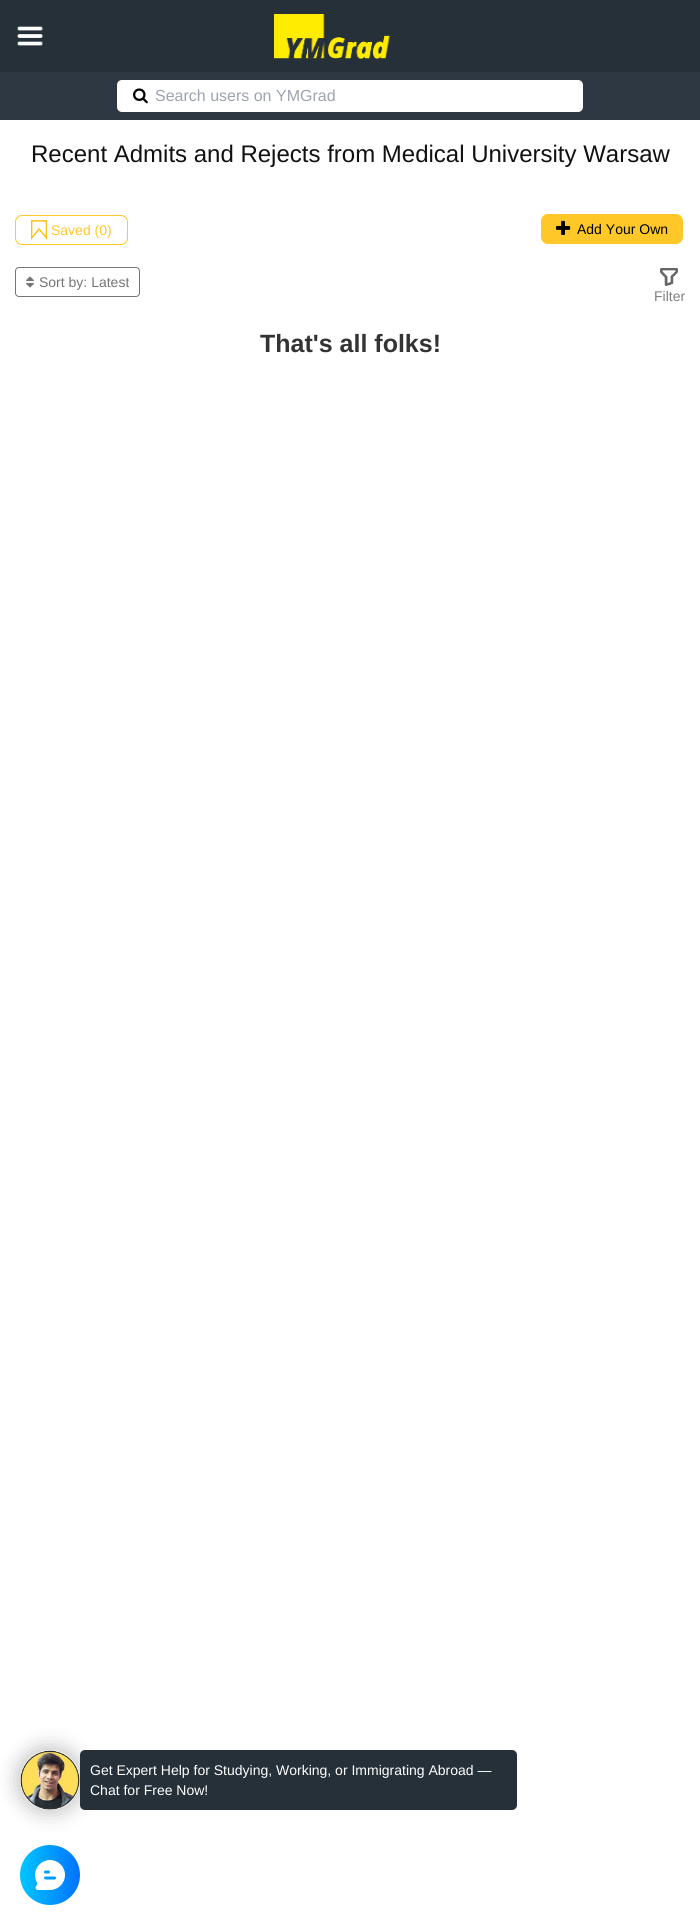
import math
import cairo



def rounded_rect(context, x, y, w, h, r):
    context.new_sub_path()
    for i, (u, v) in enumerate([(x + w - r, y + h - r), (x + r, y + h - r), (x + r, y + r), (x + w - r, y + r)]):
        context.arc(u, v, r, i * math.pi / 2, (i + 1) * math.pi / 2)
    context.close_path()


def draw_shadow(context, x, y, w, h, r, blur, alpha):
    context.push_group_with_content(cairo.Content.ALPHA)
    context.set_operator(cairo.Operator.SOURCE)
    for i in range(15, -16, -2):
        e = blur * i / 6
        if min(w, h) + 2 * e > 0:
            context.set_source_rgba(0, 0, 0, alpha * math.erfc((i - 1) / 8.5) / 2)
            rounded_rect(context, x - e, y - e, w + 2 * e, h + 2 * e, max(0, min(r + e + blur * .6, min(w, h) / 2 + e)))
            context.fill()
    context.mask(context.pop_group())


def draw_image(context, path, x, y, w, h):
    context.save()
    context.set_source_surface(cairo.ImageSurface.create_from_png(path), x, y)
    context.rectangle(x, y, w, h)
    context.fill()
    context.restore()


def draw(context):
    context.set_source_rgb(1, 1, 1)
    context.paint()
    context.set_source_rgb(38 / 255, 48 / 255, 57 / 255)
    context.rectangle(0, 0, 700, 72)
    context.fill()
    draw_image(context, "images/1.png", 17, 26, 27, 20)
    draw_image(context, "images/2.png", 274, 14, 116, 45)
    context.set_source_rgb(46 / 255, 56 / 255, 67 / 255)
    context.rectangle(0, 72, 700, 48)
    context.fill()
    context.set_source_rgb(1, 1, 1)
    rounded_rect(context, 117, 80, 466, 32, 5)
    context.fill()
    draw_image(context, "images/3.png", 133, 88, 15, 16)
    rounded_rect(context, 15.5, 215.5, 112, 29, 6.5)
    context.set_source_rgb(1, 199 / 255, 39 / 255)
    context.set_line_width(1)
    context.stroke()
    draw_image(context, "images/4.png", 31, 220, 16, 20)
    rounded_rect(context, 15.5, 267.5, 124, 29, 3.5)
    context.set_source_rgb(118 / 255, 117 / 255, 117 / 255)
    context.stroke()
    draw_image(context, "images/5.png", 26, 276, 8, 12)
    context.set_source_rgb(1, 199 / 255, 39 / 255)
    rounded_rect(context, 541, 214, 142, 30, 7)
    context.fill()
    draw_image(context, "images/6.png", 556, 220, 15, 15)
    draw_image(context, "images/7.png", 660, 268, 18, 18)
    context.set_source_rgb(131 / 255, 131 / 255, 131 / 255)
    draw_shadow(context, 18, 1748, 64, 64, 32, 10, 0.52)
    draw_image(context, "images/8.png", 20, 1750, 60, 60)
    context.set_source_rgb(38 / 255, 48 / 255, 57 / 255)
    rounded_rect(context, 80, 1750, 437, 60, 5)
    context.fill()
    draw_image(context, "images/9.png", 20, 1845, 60, 60)
    context.select_font_face("Liberation Sans")
    context.set_font_size(16)
    context.set_source_rgb(156 / 255, 163 / 255, 175 / 255)
    context.move_to(155, 101)
    context.show_text("Search users on YMGrad")
    context.set_font_size(24)
    context.set_source_rgb(17 / 255, 17 / 255, 17 / 255)
    context.move_to(31, 162)
    context.show_text("Recent Admits and Rejects from Medical University Warsaw")
    context.set_font_size(14)
    context.set_source_rgb(1, 199 / 255, 39 / 255)
    context.move_to(51, 235)
    context.show_text("Saved (0)")
    context.set_source_rgb(118 / 255, 117 / 255, 117 / 255)
    context.move_to(39, 287)
    context.show_text("Sort by: Latest")
    context.set_source_rgb(0, 0, 0)
    context.move_to(577, 234)
    context.show_text("Add Your Own")
    context.set_source_rgb(128 / 255, 128 / 255, 128 / 255)
    context.move_to(654, 301)
    context.show_text("Filter")
    context.select_font_face("Liberation Sans", cairo.FontSlant.NORMAL, cairo.FontWeight.BOLD)
    context.set_font_size(25)
    context.set_source_rgb(51 / 255, 51 / 255, 51 / 255)
    context.move_to(260, 352)
    context.show_text("That's all folks!")
    context.select_font_face("Liberation Sans")
    context.set_font_size(14)
    context.set_source_rgb(1, 1, 1)
    context.move_to(90, 1775)
    context.show_text("Get Expert Help for Studying, Working, or Immigrating Abroad —")
    context.move_to(90, 1795)
    context.show_text("Chat for Free Now!")


surface = cairo.ImageSurface(cairo.Format.RGB24, 700, 1920)
context = cairo.Context(surface)
options = cairo.FontOptions()
options.set_hint_metrics(cairo.HintMetrics.OFF)
options.set_hint_style(cairo.HintStyle.NONE)
context.set_font_options(options)
context.set_miter_limit(4)
draw(context)
surface.write_to_png("out.png")
